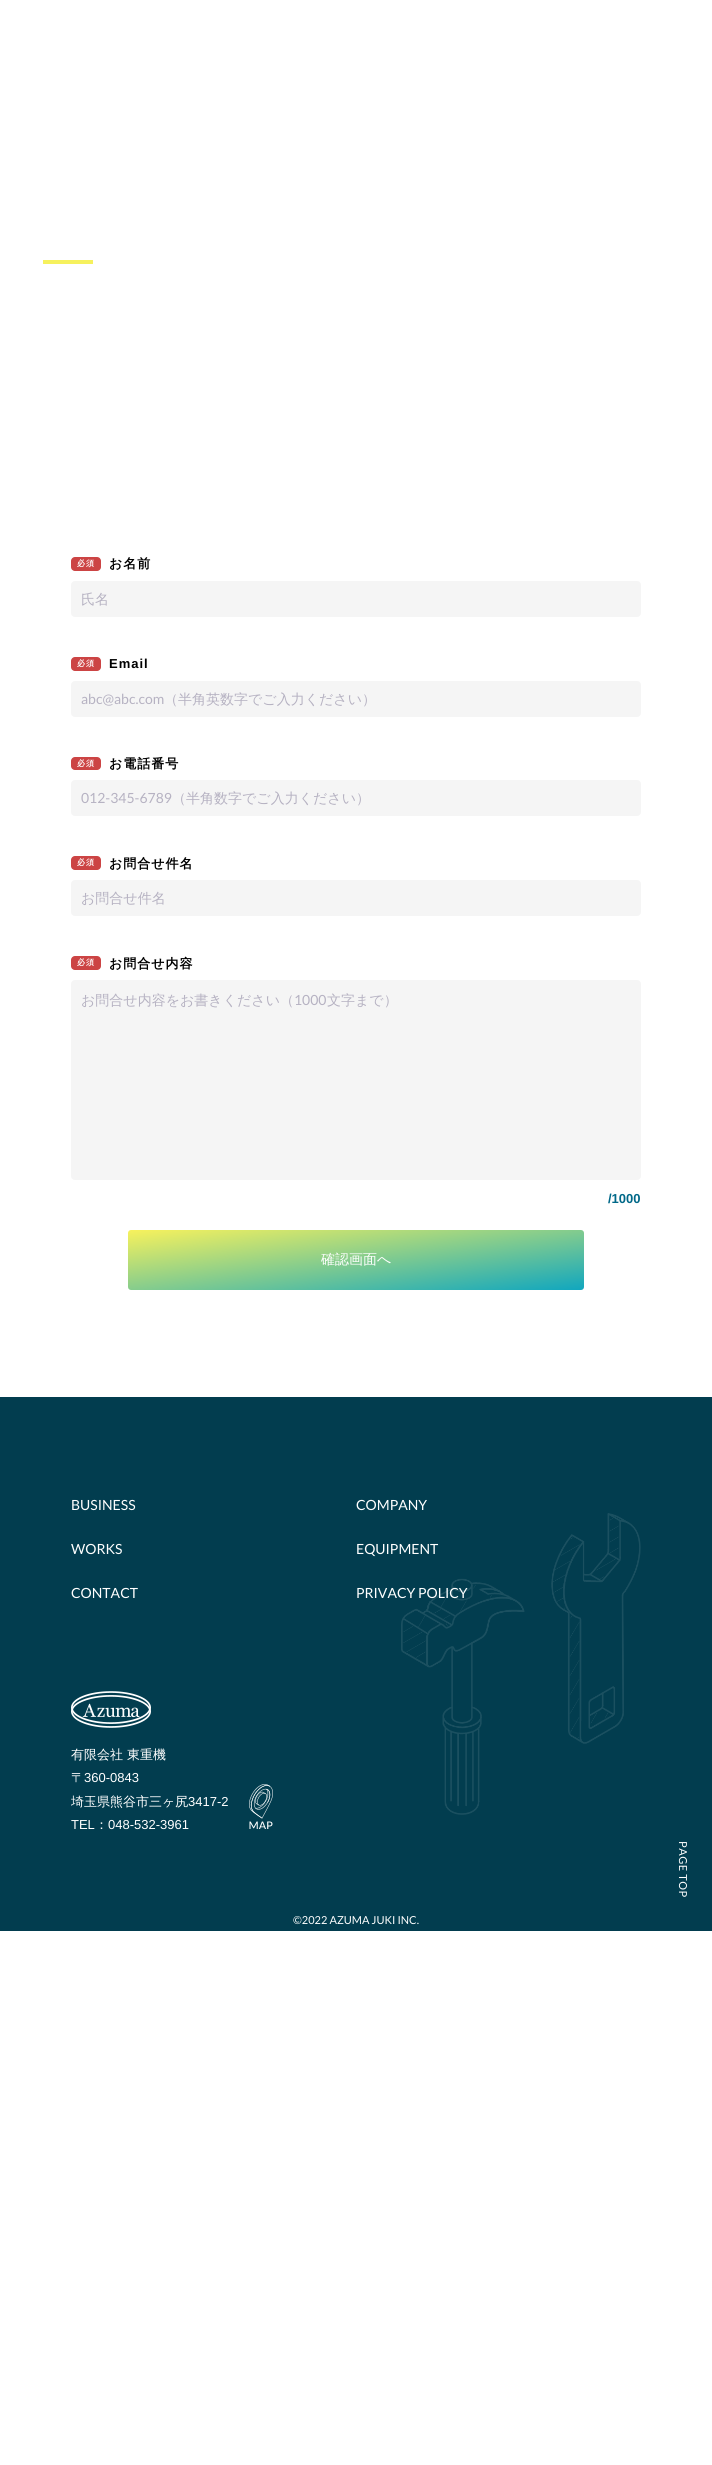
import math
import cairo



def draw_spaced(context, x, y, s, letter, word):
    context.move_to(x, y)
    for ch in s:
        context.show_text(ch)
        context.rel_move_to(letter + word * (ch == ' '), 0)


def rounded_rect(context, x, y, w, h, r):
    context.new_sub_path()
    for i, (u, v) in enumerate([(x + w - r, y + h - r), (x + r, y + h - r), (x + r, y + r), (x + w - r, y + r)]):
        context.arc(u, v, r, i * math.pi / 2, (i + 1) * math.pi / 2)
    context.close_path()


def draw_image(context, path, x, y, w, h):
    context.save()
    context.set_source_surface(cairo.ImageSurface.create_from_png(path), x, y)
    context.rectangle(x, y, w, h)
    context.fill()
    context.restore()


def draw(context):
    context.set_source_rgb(1, 1, 1)
    context.paint()
    context.set_source_rgb(246 / 255, 241 / 255, 93 / 255)
    context.rectangle(43, 260, 50, 4)
    context.fill()
    context.set_source_rgb(204 / 255, 68 / 255, 68 / 255)
    rounded_rect(context, 71, 557, 30, 14, 4)
    context.fill()
    context.set_source_rgb(245 / 255, 245 / 255, 245 / 255)
    rounded_rect(context, 71, 581, 570, 36, 4)
    context.fill()
    context.set_source_rgb(204 / 255, 68 / 255, 68 / 255)
    rounded_rect(context, 71, 657, 30, 14, 4)
    context.fill()
    context.set_source_rgb(245 / 255, 245 / 255, 245 / 255)
    rounded_rect(context, 71, 681, 570, 36, 4)
    context.fill()
    context.set_source_rgb(204 / 255, 68 / 255, 68 / 255)
    rounded_rect(context, 71, 757, 30, 13, 4)
    context.fill()
    context.set_source_rgb(245 / 255, 245 / 255, 245 / 255)
    rounded_rect(context, 71, 780, 570, 36, 4)
    context.fill()
    context.set_source_rgb(204 / 255, 68 / 255, 68 / 255)
    rounded_rect(context, 71, 856, 30, 14, 4)
    context.fill()
    context.set_source_rgb(245 / 255, 245 / 255, 245 / 255)
    rounded_rect(context, 71, 880, 570, 36, 4)
    context.fill()
    context.set_source_rgb(204 / 255, 68 / 255, 68 / 255)
    rounded_rect(context, 71, 956, 30, 14, 4)
    context.fill()
    context.set_source_rgb(245 / 255, 245 / 255, 245 / 255)
    rounded_rect(context, 71, 980, 570, 200, 4)
    context.fill()
    gradient = cairo.LinearGradient(364, 1319, 348, 1201)
    gradient.add_color_stop_rgba(0, 18 / 255, 167 / 255, 190 / 255, 1)
    gradient.add_color_stop_rgba(1, 246 / 255, 241 / 255, 93 / 255, 1)
    context.set_source(gradient)
    rounded_rect(context, 128, 1230, 456, 60, 3)
    context.fill()
    context.set_source_rgb(2 / 255, 61 / 255, 79 / 255)
    context.rectangle(0, 1397, 712, 534)
    context.fill()
    draw_image(context, "images/1.png", 71, 1691, 80, 37)
    draw_image(context, "images/2.png", 249, 1784, 24, 45)
    draw_image(context, "images/3.png", 401, 1513, 240, 302)
    context.select_font_face("WenQuanYi Zen Hei", cairo.FontSlant.NORMAL, cairo.FontWeight.BOLD)
    context.set_font_size(8)
    context.set_source_rgb(1, 1, 1)
    draw_spaced(context, 77, 566, "必須", 1, 0)
    context.set_font_size(13)
    context.set_source_rgb(0, 0, 0)
    draw_spaced(context, 109, 568, "お名前", 1, 0)
    context.select_font_face("WenQuanYi Zen Hei Medium")
    context.set_font_size(14)
    context.set_source_rgb(182 / 255, 178 / 255, 194 / 255)
    context.move_to(81, 604)
    context.show_text("氏名")
    context.select_font_face("WenQuanYi Zen Hei", cairo.FontSlant.NORMAL, cairo.FontWeight.BOLD)
    context.set_font_size(8)
    context.set_source_rgb(1, 1, 1)
    draw_spaced(context, 77, 666, "必須", 1, 0)
    context.select_font_face("Liberation Sans", cairo.FontSlant.NORMAL, cairo.FontWeight.BOLD)
    context.set_font_size(13)
    context.set_source_rgb(0, 0, 0)
    draw_spaced(context, 109, 668, "Email", 1, 0)
    context.select_font_face("Lato")
    context.set_font_size(14)
    context.set_source_rgb(182 / 255, 178 / 255, 194 / 255)
    context.move_to(81, 704)
    context.show_text("abc@abc.com")
    context.select_font_face("WenQuanYi Zen Hei Medium")
    context.move_to(164, 704)
    context.show_text("（半角英数字でご入力ください）")
    context.select_font_face("WenQuanYi Zen Hei", cairo.FontSlant.NORMAL, cairo.FontWeight.BOLD)
    context.set_font_size(8)
    context.set_source_rgb(1, 1, 1)
    draw_spaced(context, 77, 766, "必須", 1, 0)
    context.set_font_size(13)
    context.set_source_rgb(0, 0, 0)
    draw_spaced(context, 109, 768, "お電話番号", 1, 0)
    context.select_font_face("Lato")
    context.set_font_size(14)
    context.set_source_rgb(182 / 255, 178 / 255, 194 / 255)
    context.move_to(81, 803)
    context.show_text("012-345-6789")
    context.select_font_face("WenQuanYi Zen Hei Medium")
    context.move_to(172, 803)
    context.show_text("（半角数字でご入力ください）")
    context.select_font_face("WenQuanYi Zen Hei", cairo.FontSlant.NORMAL, cairo.FontWeight.BOLD)
    context.set_font_size(8)
    context.set_source_rgb(1, 1, 1)
    draw_spaced(context, 77, 865, "必須", 1, 0)
    context.set_font_size(13)
    context.set_source_rgb(0, 0, 0)
    draw_spaced(context, 109, 868, "お問合せ件名", 1, 0)
    context.select_font_face("WenQuanYi Zen Hei Medium")
    context.set_font_size(14)
    context.set_source_rgb(182 / 255, 178 / 255, 194 / 255)
    context.move_to(81, 903)
    context.show_text("お問合せ件名")
    context.select_font_face("WenQuanYi Zen Hei", cairo.FontSlant.NORMAL, cairo.FontWeight.BOLD)
    context.set_font_size(8)
    context.set_source_rgb(1, 1, 1)
    draw_spaced(context, 77, 965, "必須", 1, 0)
    context.set_font_size(13)
    context.set_source_rgb(0, 0, 0)
    draw_spaced(context, 109, 968, "お問合せ内容", 1, 0)
    context.select_font_face("WenQuanYi Zen Hei Medium")
    context.set_font_size(14)
    context.set_source_rgb(182 / 255, 178 / 255, 194 / 255)
    context.move_to(81, 1005)
    context.show_text("お問合せ内容をお書きください（")
    context.select_font_face("Lato")
    context.move_to(294, 1005)
    context.show_text("1000")
    context.select_font_face("WenQuanYi Zen Hei Medium")
    context.move_to(327, 1005)
    context.show_text("文字まで）")
    context.select_font_face("Liberation Sans", cairo.FontSlant.NORMAL, cairo.FontWeight.BOLD)
    context.set_font_size(13)
    context.set_source_rgb(0, 104 / 255, 136 / 255)
    context.move_to(608, 1203)
    context.show_text("/1000")
    context.select_font_face("WenQuanYi Zen Hei Medium")
    context.set_font_size(14)
    context.set_source_rgb(1, 1, 1)
    context.move_to(321, 1264)
    context.show_text("確認画面へ")
    context.select_font_face("Lato")
    context.move_to(71, 1510)
    context.show_text("BUSINESS")
    context.move_to(356, 1510)
    context.show_text("COMPANY")
    context.move_to(71, 1554)
    context.show_text("WORKS")
    context.move_to(356, 1554)
    context.show_text("EQUIPMENT")
    context.move_to(71, 1598)
    context.show_text("CONTACT")
    context.move_to(356, 1598)
    context.show_text("PRIVACY POLICY")
    context.select_font_face("WenQuanYi Zen Hei Medium")
    context.set_font_size(13)
    context.move_to(71, 1759)
    context.show_text("有限会社 東重機")
    context.move_to(71, 1782)
    context.show_text("〒")
    context.select_font_face("Liberation Sans")
    context.move_to(84, 1782)
    context.show_text("360-0843")
    context.select_font_face("WenQuanYi Zen Hei Medium")
    context.move_to(71, 1806)
    context.show_text("埼玉県熊谷市三ヶ尻")
    context.select_font_face("Liberation Sans")
    context.move_to(188, 1806)
    context.show_text("3417-2")
    context.move_to(71, 1829)
    context.show_text("TEL")
    context.select_font_face("WenQuanYi Zen Hei Medium")
    context.move_to(95, 1829)
    context.show_text("：")
    context.select_font_face("Liberation Sans")
    context.move_to(108, 1829)
    context.show_text("048-532-3961")
    context.select_font_face("Lato")
    context.set_font_size(11)
    context.save()
    context.translate(679, 1841)
    context.rotate(90 * math.pi / 180)
    draw_spaced(context, 0, 0, "PAGE TOP", 0.5, 0)
    context.restore()
    context.move_to(293, 1924)
    context.show_text("©2022 AZUMA JUKI INC.")


surface = cairo.ImageSurface(cairo.Format.RGB24, 712, 2465)
context = cairo.Context(surface)
options = cairo.FontOptions()
options.set_hint_metrics(cairo.HintMetrics.OFF)
options.set_hint_style(cairo.HintStyle.NONE)
context.set_font_options(options)
context.set_miter_limit(4)
draw(context)
surface.write_to_png("out.png")
